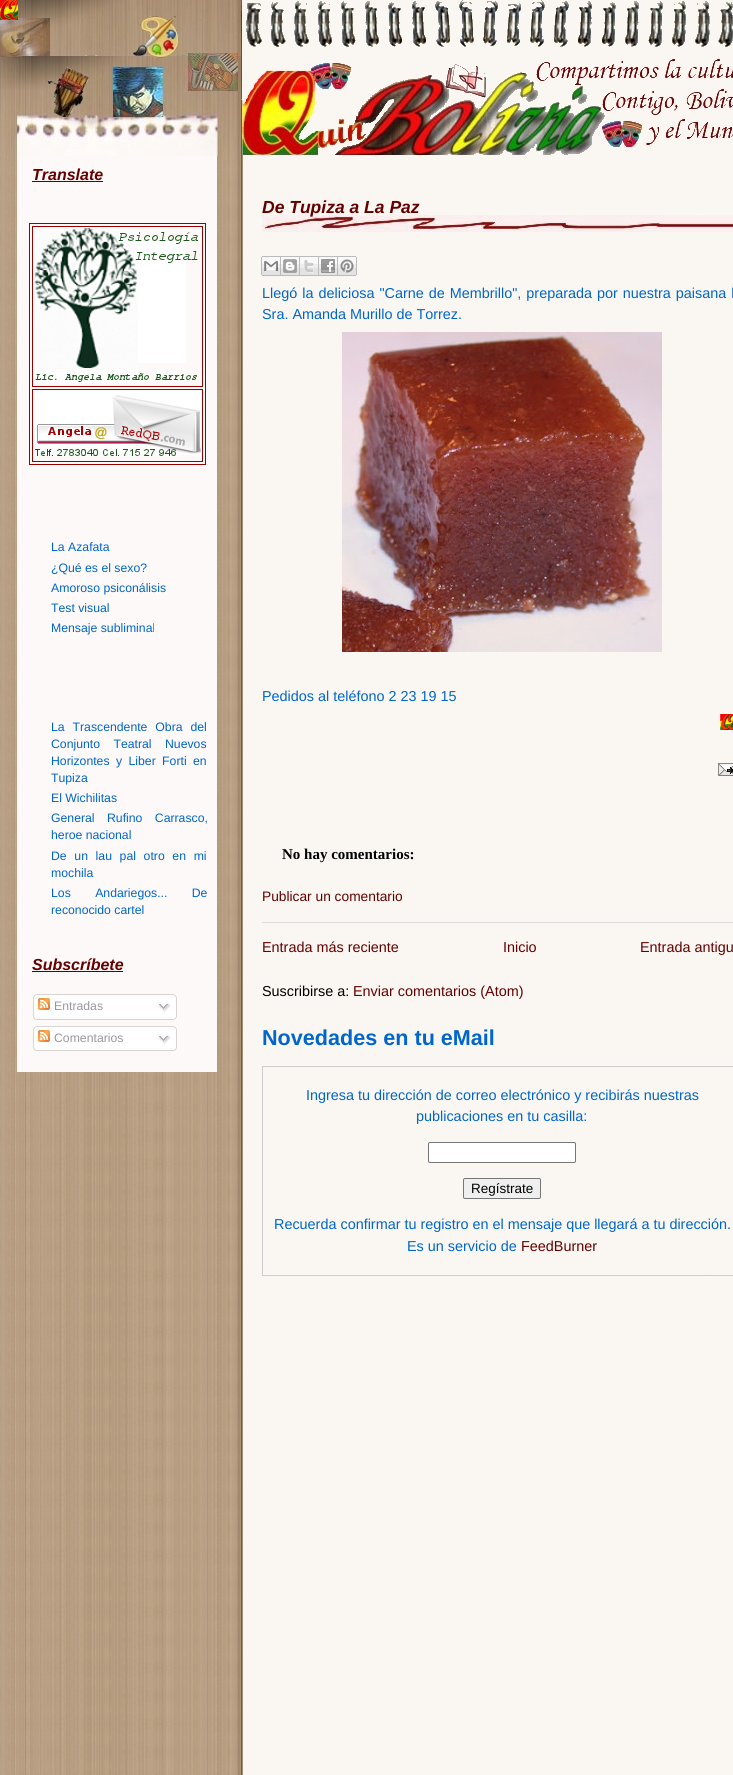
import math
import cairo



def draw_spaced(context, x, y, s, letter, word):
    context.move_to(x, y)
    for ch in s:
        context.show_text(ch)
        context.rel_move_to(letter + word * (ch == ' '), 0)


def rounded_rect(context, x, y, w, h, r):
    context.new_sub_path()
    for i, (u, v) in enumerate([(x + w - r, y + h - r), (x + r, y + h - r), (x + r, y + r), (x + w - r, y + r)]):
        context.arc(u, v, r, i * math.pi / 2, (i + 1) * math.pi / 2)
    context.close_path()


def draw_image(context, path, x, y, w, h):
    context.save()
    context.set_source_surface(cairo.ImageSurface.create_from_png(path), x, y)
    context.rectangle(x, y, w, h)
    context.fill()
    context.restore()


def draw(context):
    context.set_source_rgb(1, 1, 1)
    context.paint()
    draw_image(context, "images/1.png", 0, 0, 733, 156)
    draw_image(context, "images/2.png", 0, 0, 18, 20)
    draw_image(context, "images/3.png", 0, 156, 733, 1619)
    context.set_source_rgb(253 / 255, 249 / 255, 248 / 255)
    context.rectangle(17, 156, 200, 916)
    context.fill()
    context.set_source_rgb(102 / 255, 0, 0)
    context.rectangle(32, 181, 71, 1)
    context.fill()
    draw_image(context, "images/4.png", 29, 223, 177, 242)
    context.rectangle(32, 971, 91, 1)
    context.fill()
    draw_image(context, "images/5.png", 33, 994, 144, 23)
    draw_image(context, "images/6.png", 38, 998, 12, 12)
    draw_image(context, "images/7.png", 158, 1003, 13, 9)
    draw_image(context, "images/8.png", 33, 1017, 144, 3)
    draw_image(context, "images/9.png", 33, 1026, 144, 22)
    draw_image(context, "images/6.png", 38, 1030, 12, 12)
    draw_image(context, "images/7.png", 158, 1035, 13, 9)
    draw_image(context, "images/8.png", 33, 1048, 144, 3)
    draw_image(context, "images/10.png", 262, 215, 471, 17)
    draw_image(context, "images/11.png", 261, 256, 20, 20)
    draw_image(context, "images/12.png", 281, 256, 19, 20)
    draw_image(context, "images/13.png", 300, 256, 19, 20)
    draw_image(context, "images/14.png", 319, 256, 19, 20)
    draw_image(context, "images/15.png", 338, 256, 19, 20)
    draw_image(context, "images/16.png", 342, 332, 320, 320)
    draw_image(context, "images/17.png", 720, 714, 13, 16)
    draw_image(context, "images/18.png", 718, 763, 15, 13)
    context.set_source_rgb(221 / 255, 221 / 255, 221 / 255)
    context.rectangle(262, 922, 471, 1)
    context.fill()
    context.rectangle(262.5, 1066.5, 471, 209)
    context.set_source_rgb(204 / 255, 204 / 255, 204 / 255)
    context.set_line_width(1)
    context.stroke()
    context.set_source_rgb(1, 1, 1)
    rounded_rect(context, 428.5, 1142.5, 147, 20, 1.5)
    context.fill_preserve()
    context.set_source_rgb(118 / 255, 118 / 255, 118 / 255)
    context.stroke()
    context.set_source_rgb(239 / 255, 239 / 255, 239 / 255)
    rounded_rect(context, 463.5, 1178.5, 77, 20, 1.5)
    context.fill_preserve()
    context.set_source_rgb(118 / 255, 118 / 255, 118 / 255)
    context.stroke()
    context.select_font_face("Liberation Sans", cairo.FontSlant.ITALIC, cairo.FontWeight.BOLD)
    context.set_font_size(16)
    context.set_source_rgb(102 / 255, 0, 0)
    context.move_to(32, 180)
    context.show_text("Translate")
    context.select_font_face("Liberation Sans")
    context.set_font_size(12.25)
    context.set_source_rgb(0, 102 / 255, 204 / 255)
    context.move_to(51, 551)
    context.show_text("La Azafata")
    context.move_to(51, 572)
    context.show_text("¿Qué es el sexo?")
    context.move_to(51, 592)
    context.show_text("Amoroso psiconálisis")
    context.move_to(51, 612)
    context.show_text("Test visual")
    context.move_to(51, 632)
    context.show_text("Mensaje subliminal")
    draw_spaced(context, 51, 731, "La Trascendente Obra del", 0, 4.5)
    draw_spaced(context, 51, 748, "Conjunto Teatral Nuevos", 0, 10)
    draw_spaced(context, 51, 765, "Horizontes y Liber Forti", 0, 3)
    context.move_to(193, 765)
    context.show_text("en")
    context.move_to(51, 782)
    context.show_text("Tupiza")
    context.move_to(51, 802)
    context.show_text("El Wichilitas")
    draw_spaced(context, 51, 822, "General Rufino Carrasco,", 0, 9)
    context.move_to(51, 839)
    context.show_text("heroe nacional")
    draw_spaced(context, 51, 860, "De un lau pal otro en mi", 0, 4.25)
    context.move_to(51, 877)
    context.show_text("mochila")
    draw_spaced(context, 51, 897, "Los Andariegos... De", 0, 21)
    context.move_to(51, 914)
    context.show_text("reconocido cartel")
    context.select_font_face("Liberation Sans", cairo.FontSlant.ITALIC, cairo.FontWeight.BOLD)
    context.set_font_size(16)
    context.set_source_rgb(102 / 255, 0, 0)
    context.move_to(32, 970)
    context.show_text("Subscríbete")
    context.select_font_face("Liberation Sans")
    context.set_font_size(12.25)
    context.set_source_rgb(153 / 255, 153 / 255, 153 / 255)
    context.move_to(54, 1010)
    context.show_text("Entradas")
    context.move_to(54, 1042)
    context.show_text("Comentarios")
    context.select_font_face("Liberation Sans", cairo.FontSlant.ITALIC, cairo.FontWeight.BOLD)
    context.set_font_size(17.5)
    context.set_source_rgb(102 / 255, 0, 0)
    context.move_to(262, 213)
    context.show_text("De Tupiza a La Paz")
    context.select_font_face("Liberation Sans")
    context.set_font_size(14.4)
    context.set_source_rgb(0, 102 / 255, 204 / 255)
    draw_spaced(context, 262, 298, "Llegó la deliciosa \"Carne de Membrillo\", preparada por nuestra paisana l", 0, 1)
    context.move_to(262, 319)
    context.show_text("Sra. Amanda Murillo de Torrez.")
    context.move_to(262, 701)
    context.show_text("Pedidos al teléfono 2 23 19 15")
    context.select_font_face("Liberation Serif", cairo.FontSlant.NORMAL, cairo.FontWeight.BOLD)
    context.set_font_size(15)
    context.set_source_rgb(0, 0, 0)
    context.move_to(282, 859)
    context.show_text("No hay comentarios:")
    context.select_font_face("Liberation Sans")
    context.set_font_size(13.75)
    context.set_source_rgb(102 / 255, 0, 0)
    context.move_to(262, 901)
    context.show_text("Publicar un comentario")
    context.set_font_size(14.4)
    context.move_to(262, 952)
    context.show_text("Entrada más reciente")
    context.move_to(503, 952)
    context.show_text("Inicio")
    context.move_to(640, 952)
    context.show_text("Entrada antigu")
    context.set_source_rgb(0, 0, 0)
    context.move_to(262, 996)
    context.show_text("Suscribirse a:")
    context.set_source_rgb(102 / 255, 0, 0)
    context.move_to(353, 996)
    context.show_text("Enviar comentarios (Atom)")
    context.select_font_face("Liberation Sans", cairo.FontSlant.NORMAL, cairo.FontWeight.BOLD)
    context.set_font_size(21.6)
    context.set_source_rgb(0, 102 / 255, 204 / 255)
    context.move_to(262, 1045)
    context.show_text("Novedades en tu eMail")
    context.select_font_face("Liberation Sans")
    context.set_font_size(14.4)
    context.move_to(306, 1100)
    context.show_text("Ingresa tu dirección de correo electrónico y recibirás nuestras")
    context.move_to(416, 1121)
    context.show_text("publicaciones en tu casilla:")
    context.set_font_size(13.5)
    context.set_source_rgb(0, 0, 0)
    context.move_to(471, 1193)
    context.show_text("Regístrate")
    context.set_font_size(14.4)
    context.set_source_rgb(0, 102 / 255, 204 / 255)
    context.move_to(274, 1229)
    context.show_text("Recuerda confirmar tu registro en el mensaje que llegará a tu dirección.")
    context.move_to(407, 1251)
    context.show_text("Es un servicio de")
    context.set_source_rgb(102 / 255, 0, 0)
    context.move_to(521, 1251)
    context.show_text("FeedBurner")


surface = cairo.ImageSurface(cairo.Format.RGB24, 733, 1775)
context = cairo.Context(surface)
options = cairo.FontOptions()
options.set_hint_metrics(cairo.HintMetrics.OFF)
options.set_hint_style(cairo.HintStyle.NONE)
context.set_font_options(options)
context.set_miter_limit(4)
draw(context)
surface.write_to_png("out.png")
